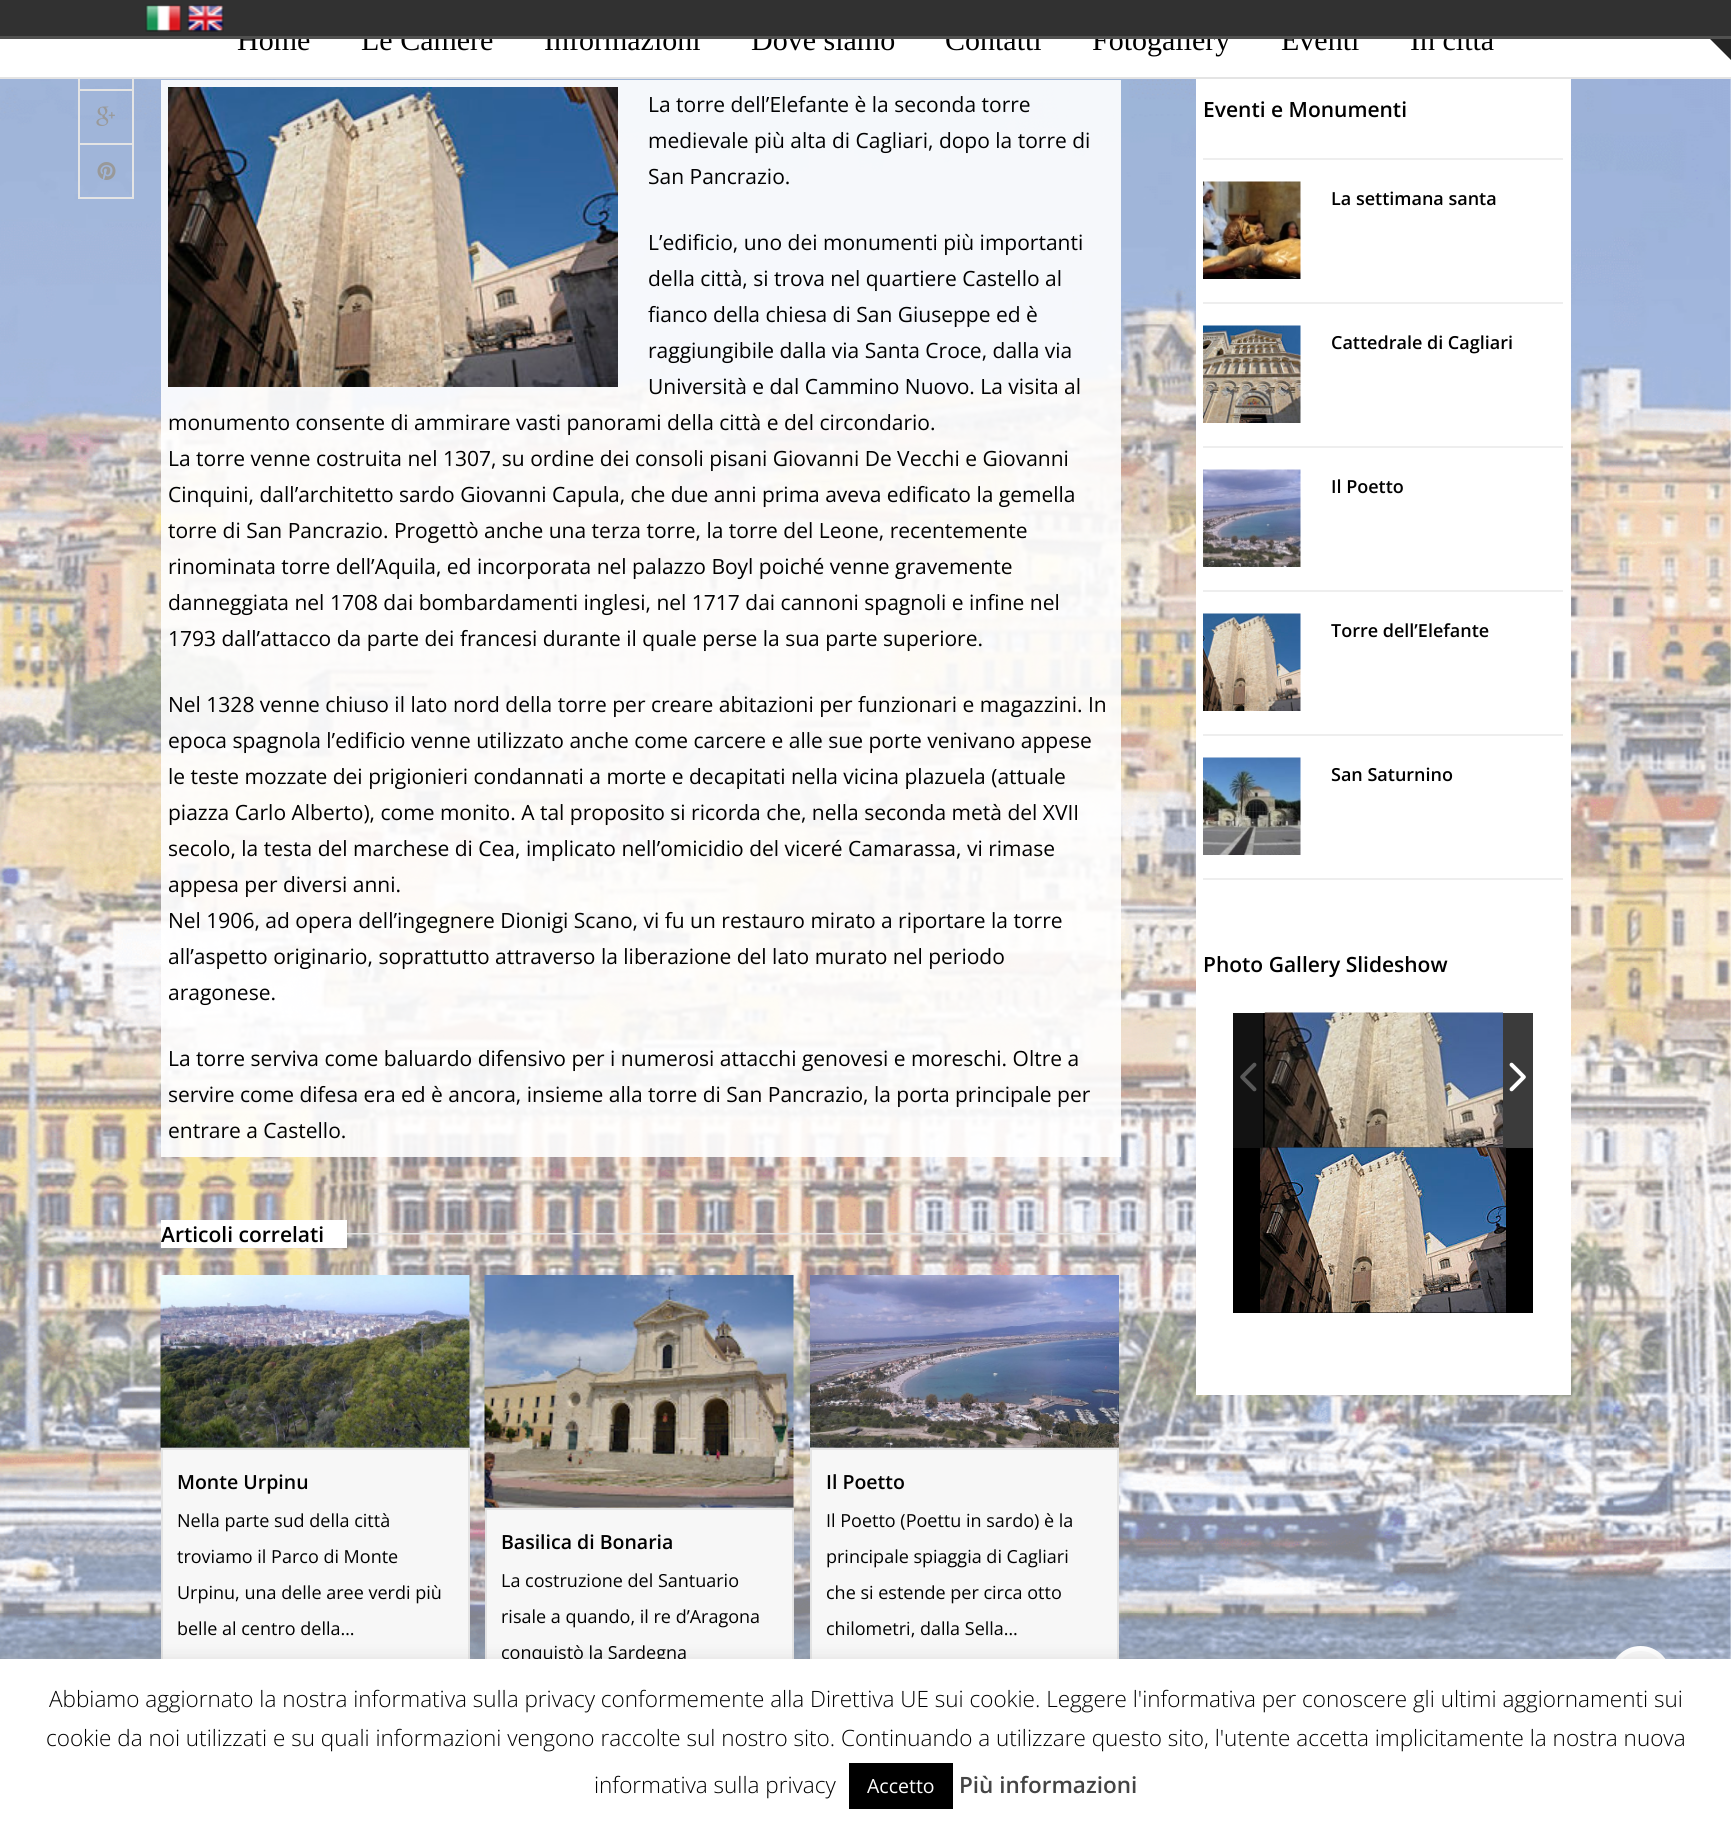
import math
import cairo



def rounded_rect(context, x, y, w, h, r):
    context.new_sub_path()
    for i, (u, v) in enumerate([(x + w - r, y + h - r), (x + r, y + h - r), (x + r, y + r), (x + w - r, y + r)]):
        context.arc(u, v, r, i * math.pi / 2, (i + 1) * math.pi / 2)
    context.close_path()


def draw_shadow(context, x, y, w, h, r, blur, alpha):
    context.push_group_with_content(cairo.Content.ALPHA)
    context.set_operator(cairo.Operator.SOURCE)
    for i in range(15, -16, -2):
        e = blur * i / 6
        if min(w, h) + 2 * e > 0:
            context.set_source_rgba(0, 0, 0, alpha * math.erfc((i - 1) / 8.5) / 2)
            rounded_rect(context, x - e, y - e, w + 2 * e, h + 2 * e, max(0, min(r + e + blur * .6, min(w, h) / 2 + e)))
            context.fill()
    context.mask(context.pop_group())


def draw_image(context, path, x, y, w, h):
    context.save()
    context.set_source_surface(cairo.ImageSurface.create_from_png(path), x, y)
    context.rectangle(x, y, w, h)
    context.fill()
    context.restore()


def draw(context):
    context.set_source_rgb(1, 1, 1)
    context.paint()
    draw_image(context, "images/1.png", 0, 79, 1731, 1580)
    context.set_source_rgb(228 / 255, 228 / 255, 228 / 255)
    context.rectangle(0, 77, 1731, 2)
    context.fill()
    context.set_source_rgb(37 / 255, 37 / 255, 37 / 255)
    context.new_path()
    context.move_to(1731, 0)
    context.line_to(1731, 60)
    context.line_to(1701, 30)
    context.close_path()
    context.fill()
    context.set_source_rgb(228 / 255, 228 / 255, 228 / 255)
    context.rectangle(132, 79, 2, 11)
    context.fill()
    context.rectangle(78, 89, 56, 2)
    context.fill()
    context.rectangle(78, 79, 2, 11)
    context.fill()
    context.rectangle(132, 90, 2, 54)
    context.fill()
    context.rectangle(78, 143, 56, 2)
    context.fill()
    context.rectangle(78, 90, 2, 54)
    context.fill()
    draw_image(context, "images/4.png", 96, 106, 19, 20)
    context.rectangle(132, 144, 2, 54)
    context.fill()
    context.rectangle(78, 197, 56, 2)
    context.fill()
    context.rectangle(78, 144, 2, 54)
    context.fill()
    draw_image(context, "images/5.png", 97, 162, 19, 18)
    context.set_source_rgba(1, 1, 1, 0.9)
    context.rectangle(161, 80, 960, 1077)
    context.fill()
    draw_image(context, "images/6.png", 168, 87, 450, 300)
    draw_image(context, "images/7.png", 160, 1233, 961, 2)
    context.set_source_rgb(1, 1, 1)
    context.rectangle(161, 1220, 186, 28)
    context.fill()
    draw_image(context, "images/8.png", 160, 1275, 310, 173)
    context.set_source_rgb(247 / 255, 247 / 255, 247 / 255)
    context.rectangle(163, 1450, 305, 209)
    context.fill()
    context.rectangle(162, 1449, 307, 214)
    context.set_source_rgb(228 / 255, 228 / 255, 228 / 255)
    context.stroke()
    draw_image(context, "images/9.png", 484, 1275, 310, 233)
    context.set_source_rgb(247 / 255, 247 / 255, 247 / 255)
    context.rectangle(487, 1510, 305, 149)
    context.fill()
    context.rectangle(486, 1509, 307, 250)
    context.set_source_rgb(228 / 255, 228 / 255, 228 / 255)
    context.stroke()
    draw_image(context, "images/10.png", 810, 1275, 309, 173)
    context.set_source_rgb(247 / 255, 247 / 255, 247 / 255)
    context.rectangle(812, 1450, 305, 209)
    context.fill()
    context.rectangle(811, 1449, 307, 214)
    context.set_source_rgb(228 / 255, 228 / 255, 228 / 255)
    context.stroke()
    context.set_source_rgb(1, 1, 1)
    context.rectangle(1196, 79, 375, 1316)
    context.fill()
    context.set_source_rgb(238 / 255, 238 / 255, 238 / 255)
    context.rectangle(1203, 158, 360, 2)
    context.fill()
    context.rectangle(1203, 302, 360, 2)
    context.fill()
    draw_image(context, "images/11.png", 1203, 181, 98, 98)
    context.rectangle(1203, 446, 360, 2)
    context.fill()
    draw_image(context, "images/12.png", 1203, 325, 98, 98)
    context.rectangle(1203, 590, 360, 2)
    context.fill()
    draw_image(context, "images/13.png", 1203, 469, 98, 98)
    context.rectangle(1203, 734, 360, 2)
    context.fill()
    draw_image(context, "images/14.png", 1203, 613, 98, 98)
    context.rectangle(1203, 878, 360, 2)
    context.fill()
    draw_image(context, "images/15.png", 1203, 757, 98, 98)
    context.set_source_rgb(0, 0, 0)
    context.rectangle(1233, 1013, 300, 300)
    context.fill()
    context.set_source_rgb(18 / 255, 18 / 255, 18 / 255)
    context.rectangle(1233, 1013, 30, 135)
    context.fill()
    draw_image(context, "images/16.png", 1240, 1062, 17, 30)
    draw_image(context, "images/17.png", 1264, 1012, 239, 136)
    context.set_source_rgb(59 / 255, 59 / 255, 59 / 255)
    context.rectangle(1503, 1013, 30, 135)
    context.fill()
    draw_image(context, "images/18.png", 1509, 1062, 17, 30)
    draw_image(context, "images/19.png", 1260, 1147, 246, 166)
    context.set_source_rgb(247 / 255, 247 / 255, 247 / 255)
    context.arc(1640.5, 1676.5, 28, 0, 2 * math.pi)
    context.fill_preserve()
    context.set_source_rgb(1, 1, 1)
    context.set_line_width(5)
    context.stroke()
    context.set_source_rgb(172 / 255, 171 / 255, 171 / 255)
    draw_shadow(context, 0, 1658, 1731, 168, 0, 7.5, 0.3)
    context.select_font_face("Liberation Serif")
    context.set_font_size(30)
    context.set_source_rgb(0, 0, 0)
    context.move_to(237, 50)
    context.show_text("Home")
    context.move_to(361, 50)
    context.show_text("Le Camere")
    context.move_to(544, 50)
    context.show_text("Informazioni")
    context.move_to(751, 50)
    context.show_text("Dove siamo")
    context.move_to(945, 50)
    context.show_text("Contatti")
    context.move_to(1092, 50)
    context.show_text("Fotogallery")
    context.move_to(1281, 50)
    context.show_text("Eventi")
    context.move_to(1410, 50)
    context.show_text("In città")
    context.set_source_rgb(49 / 255, 49 / 255, 49 / 255)
    context.rectangle(0, 0, 1731, 36)
    context.fill()
    draw_image(context, "images/3.png", 187, 4, 37, 28)
    draw_image(context, "images/2.png", 145, 4, 37, 28)
    context.set_source_rgb(81 / 255, 81 / 255, 80 / 255)
    context.rectangle(0, 36, 1731, 3)
    context.fill()
    context.select_font_face("Open Sans")
    context.set_font_size(21)
    context.set_source_rgb(0, 0, 0)
    context.move_to(648, 112)
    context.show_text("La torre dell’Elefante è la seconda torre")
    context.move_to(648, 148)
    context.show_text("medievale più alta di Cagliari, dopo la torre di")
    context.move_to(648, 184)
    context.show_text("San Pancrazio.")
    context.move_to(648, 250)
    context.show_text("L’edificio, uno dei monumenti più importanti")
    context.move_to(648, 286)
    context.show_text("della città, si trova nel quartiere Castello al")
    context.move_to(648, 322)
    context.show_text("fianco della chiesa di San Giuseppe ed è")
    context.move_to(648, 358)
    context.show_text("raggiungibile dalla via Santa Croce, dalla via")
    context.move_to(648, 394)
    context.show_text("Università e dal Cammino Nuovo. La visita al")
    context.move_to(168, 430)
    context.show_text("monumento consente di ammirare vasti panorami della città e del circondario.")
    context.move_to(168, 466)
    context.show_text("La torre venne costruita nel 1307, su ordine dei consoli pisani Giovanni De Vecchi e Giovanni")
    context.move_to(168, 502)
    context.show_text("Cinquini, dall’architetto sardo Giovanni Capula, che due anni prima aveva edificato la gemella")
    context.move_to(168, 538)
    context.show_text("torre di San Pancrazio. Progettò anche una terza torre, la torre del Leone, recentemente")
    context.move_to(168, 574)
    context.show_text("rinominata torre dell’Aquila, ed incorporata nel palazzo Boyl poiché venne gravemente")
    context.move_to(168, 610)
    context.show_text("danneggiata nel 1708 dai bombardamenti inglesi, nel 1717 dai cannoni spagnoli e infine nel")
    context.move_to(168, 646)
    context.show_text("1793 dall’attacco da parte dei francesi durante il quale perse la sua parte superiore.")
    context.move_to(168, 712)
    context.show_text("Nel 1328 venne chiuso il lato nord della torre per creare abitazioni per funzionari e magazzini. In")
    context.move_to(168, 748)
    context.show_text("epoca spagnola l’edificio venne utilizzato anche come carcere e alle sue porte venivano appese")
    context.move_to(168, 784)
    context.show_text("le teste mozzate dei prigionieri condannati a morte e decapitati nella vicina plazuela (attuale")
    context.move_to(168, 820)
    context.show_text("piazza Carlo Alberto), come monito. A tal proposito si ricorda che, nella seconda metà del XVII")
    context.move_to(168, 856)
    context.show_text("secolo, la testa del marchese di Cea, implicato nell’omicidio del viceré Camarassa, vi rimase")
    context.move_to(168, 892)
    context.show_text("appesa per diversi anni.")
    context.move_to(168, 928)
    context.show_text("Nel 1906, ad opera dell’ingegnere Dionigi Scano, vi fu un restauro mirato a riportare la torre")
    context.move_to(168, 964)
    context.show_text("all’aspetto originario, soprattutto attraverso la liberazione del lato murato nel periodo")
    context.move_to(168, 1000)
    context.show_text("aragonese.")
    context.move_to(168, 1066)
    context.show_text("La torre serviva come baluardo difensivo per i numerosi attacchi genovesi e moreschi. Oltre a")
    context.move_to(168, 1102)
    context.show_text("servire come difesa era ed è ancora, insieme alla torre di San Pancrazio, la porta principale per")
    context.move_to(168, 1138)
    context.show_text("entrare a Castello.")
    context.select_font_face("Open Sans SemiBold")
    context.move_to(161, 1242)
    context.show_text("Articoli correlati")
    context.set_font_size(19.5)
    context.move_to(177, 1489)
    context.show_text("Monte Urpinu")
    context.select_font_face("Open Sans")
    context.set_font_size(18)
    context.move_to(177, 1527)
    context.show_text("Nella parte sud della città")
    context.move_to(177, 1563)
    context.show_text("troviamo il Parco di Monte")
    context.move_to(177, 1599)
    context.show_text("Urpinu, una delle aree verdi più")
    context.move_to(177, 1635)
    context.show_text("belle al centro della…")
    context.select_font_face("Open Sans SemiBold")
    context.set_font_size(19.5)
    context.move_to(501, 1549)
    context.show_text("Basilica di Bonaria")
    context.select_font_face("Open Sans")
    context.set_font_size(18)
    context.move_to(501, 1587)
    context.show_text("La costruzione del Santuario")
    context.move_to(501, 1623)
    context.show_text("risale a quando, il re d’Aragona")
    context.move_to(501, 1659)
    context.show_text("conquistò la Sardegna")
    context.select_font_face("Open Sans SemiBold")
    context.set_font_size(19.5)
    context.move_to(826, 1489)
    context.show_text("Il Poetto")
    context.select_font_face("Open Sans")
    context.set_font_size(18)
    context.move_to(826, 1527)
    context.show_text("Il Poetto (Poettu in sardo) è la")
    context.move_to(826, 1563)
    context.show_text("principale spiaggia di Cagliari")
    context.move_to(826, 1599)
    context.show_text("che si estende per circa otto")
    context.move_to(826, 1635)
    context.show_text("chilometri, dalla Sella…")
    context.select_font_face("Open Sans SemiBold")
    context.set_font_size(21)
    context.move_to(1203, 117)
    context.show_text("Eventi e Monumenti")
    context.set_font_size(18)
    context.move_to(1331, 205)
    context.show_text("La settimana santa")
    context.move_to(1331, 349)
    context.show_text("Cattedrale di Cagliari")
    context.move_to(1331, 493)
    context.show_text("Il Poetto")
    context.move_to(1331, 637)
    context.show_text("Torre dell’Elefante")
    context.move_to(1331, 781)
    context.show_text("San Saturnino")
    context.set_font_size(21)
    context.move_to(1203, 972)
    context.show_text("Photo Gallery Slideshow")
    context.set_source_rgb(1, 1, 1)
    context.rectangle(0, 1659, 1731, 167)
    context.fill()
    context.select_font_face("Open Sans Light")
    context.set_font_size(22.5)
    context.set_source_rgb(0, 0, 0)
    context.move_to(49, 1707)
    context.show_text("Abbiamo aggiornato la nostra informativa sulla privacy conformemente alla Direttiva UE sui cookie. Leggere l'informativa per conoscere gli ultimi aggiornamenti sui")
    context.move_to(46, 1746)
    context.show_text("cookie da noi utilizzati e su quali informazioni vengono raccolte sul nostro sito. Continuando a utilizzare questo sito, l'utente accetta implicitamente la nostra nuova")
    context.move_to(594, 1793)
    context.show_text("informativa sulla privacy")
    context.rectangle(849, 1763, 104, 46)
    context.fill()
    context.select_font_face("Open Sans")
    context.set_font_size(19.5)
    context.set_source_rgb(1, 1, 1)
    context.move_to(867, 1793)
    context.show_text("Accetto")
    context.select_font_face("Open Sans SemiBold")
    context.set_font_size(22.5)
    context.set_source_rgb(68 / 255, 68 / 255, 68 / 255)
    context.move_to(959, 1793)
    context.show_text("Più informazioni")


surface = cairo.ImageSurface(cairo.Format.RGB24, 1731, 1826)
context = cairo.Context(surface)
options = cairo.FontOptions()
options.set_hint_metrics(cairo.HintMetrics.OFF)
options.set_hint_style(cairo.HintStyle.NONE)
context.set_font_options(options)
context.set_miter_limit(4)
draw(context)
surface.write_to_png("out.png")
